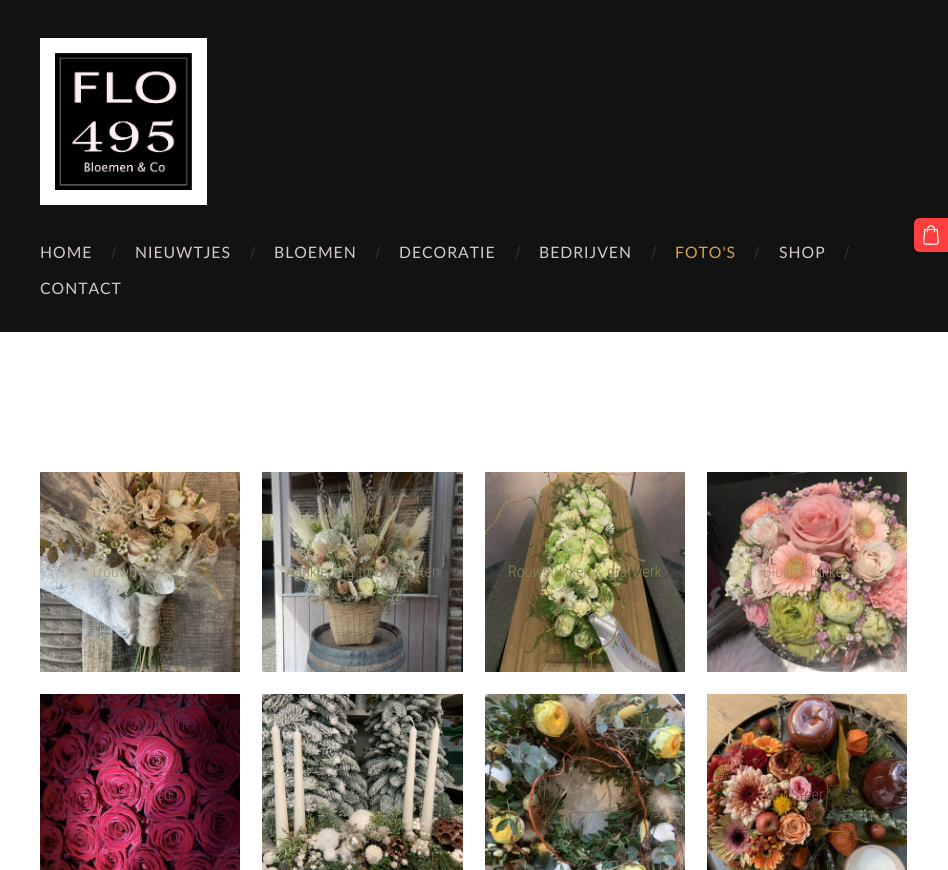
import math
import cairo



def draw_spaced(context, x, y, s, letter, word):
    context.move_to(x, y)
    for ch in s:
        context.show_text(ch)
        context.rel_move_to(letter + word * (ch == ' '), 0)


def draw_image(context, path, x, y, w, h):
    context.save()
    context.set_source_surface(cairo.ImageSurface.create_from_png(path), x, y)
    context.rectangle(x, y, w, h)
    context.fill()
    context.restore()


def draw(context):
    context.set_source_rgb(18 / 255, 18 / 255, 18 / 255)
    context.paint()
    context.set_source_rgb(1, 1, 1)
    context.rectangle(40, 38, 167, 167)
    context.fill()
    draw_image(context, "images/1.png", 55, 53, 137, 137)
    context.rectangle(0, 332, 948, 538)
    context.fill()
    context.set_source_rgb(1, 63 / 255, 63 / 255)
    context.new_path()
    context.move_to(920, 218)
    context.line_to(948, 218)
    context.line_to(948, 252)
    context.line_to(920, 252)
    context.curve_to(916.5, 252, 914, 249.5, 914, 246)
    context.line_to(914, 224)
    context.curve_to(914, 220.5, 916.5, 218, 920, 218)
    context.close_path()
    context.fill()
    draw_image(context, "images/2.png", 923, 225, 16, 20)
    draw_image(context, "images/3.png", 40, 472, 200, 200)
    draw_image(context, "images/4.png", 262, 472, 201, 200)
    draw_image(context, "images/5.png", 485, 472, 200, 200)
    draw_image(context, "images/6.png", 707, 472, 200, 200)
    draw_image(context, "images/7.png", 40, 694, 200, 176)
    draw_image(context, "images/8.png", 262, 694, 201, 176)
    draw_image(context, "images/9.png", 485, 694, 200, 176)
    draw_image(context, "images/10.png", 707, 694, 200, 176)
    context.select_font_face("Lato")
    context.set_font_size(15.75)
    context.set_source_rgb(208 / 255, 202 / 255, 200 / 255)
    draw_spaced(context, 40, 258, "HOME", 1, 0)
    context.select_font_face("Roboto Condensed Light")
    context.set_font_size(16)
    context.set_source_rgb(65 / 255, 65 / 255, 65 / 255)
    context.move_to(111, 258)
    context.show_text("/")
    context.select_font_face("Lato")
    context.set_font_size(15.75)
    context.set_source_rgb(208 / 255, 202 / 255, 200 / 255)
    draw_spaced(context, 135, 258, "NIEUWTJES", 1, 0)
    context.select_font_face("Roboto Condensed Light")
    context.set_font_size(16)
    context.set_source_rgb(65 / 255, 65 / 255, 65 / 255)
    context.move_to(250, 258)
    context.show_text("/")
    context.select_font_face("Lato")
    context.set_font_size(15.75)
    context.set_source_rgb(208 / 255, 202 / 255, 200 / 255)
    draw_spaced(context, 274, 258, "BLOEMEN", 1, 0)
    context.select_font_face("Roboto Condensed Light")
    context.set_font_size(16)
    context.set_source_rgb(65 / 255, 65 / 255, 65 / 255)
    context.move_to(375, 258)
    context.show_text("/")
    context.select_font_face("Lato")
    context.set_font_size(15.75)
    context.set_source_rgb(208 / 255, 202 / 255, 200 / 255)
    draw_spaced(context, 399, 258, "DECORATIE", 1, 0)
    context.select_font_face("Roboto Condensed Light")
    context.set_font_size(16)
    context.set_source_rgb(65 / 255, 65 / 255, 65 / 255)
    context.move_to(515, 258)
    context.show_text("/")
    context.select_font_face("Lato")
    context.set_font_size(15.75)
    context.set_source_rgb(208 / 255, 202 / 255, 200 / 255)
    draw_spaced(context, 539, 258, "BEDRIJVEN", 1, 0)
    context.select_font_face("Roboto Condensed Light")
    context.set_font_size(16)
    context.set_source_rgb(65 / 255, 65 / 255, 65 / 255)
    context.move_to(651, 258)
    context.show_text("/")
    context.select_font_face("Lato")
    context.set_font_size(15.75)
    context.set_source_rgb(213 / 255, 163 / 255, 83 / 255)
    draw_spaced(context, 675, 258, "FOTO'S", 1, 0)
    context.select_font_face("Roboto Condensed Light")
    context.set_font_size(16)
    context.set_source_rgb(65 / 255, 65 / 255, 65 / 255)
    context.move_to(754, 258)
    context.show_text("/")
    context.select_font_face("Lato")
    context.set_font_size(15.75)
    context.set_source_rgb(208 / 255, 202 / 255, 200 / 255)
    draw_spaced(context, 779, 258, "SHOP", 1, 0)
    context.select_font_face("Roboto Condensed Light")
    context.set_font_size(16)
    context.set_source_rgb(65 / 255, 65 / 255, 65 / 255)
    context.move_to(844, 258)
    context.show_text("/")
    context.select_font_face("Lato")
    context.set_font_size(15.75)
    context.set_source_rgb(208 / 255, 202 / 255, 200 / 255)
    draw_spaced(context, 40, 294, "CONTACT", 1, 0)
    context.select_font_face("Roboto Condensed Light")
    context.set_font_size(16)
    context.set_source_rgb(157 / 255, 153 / 255, 134 / 255)
    context.move_to(90, 577)
    context.show_text("Trouwb")
    context.set_source_rgb(134 / 255, 130 / 255, 107 / 255)
    context.move_to(286, 577)
    context.show_text("Aankleding trouwfeesten")
    context.set_source_rgb(139 / 255, 134 / 255, 88 / 255)
    context.move_to(508, 577)
    context.show_text("Rouwstukken & grafwerk")
    context.set_source_rgb(181 / 255, 136 / 255, 111 / 255)
    context.move_to(763, 577)
    context.show_text("Bloemstukken")
    context.set_source_rgb(166 / 255, 52 / 255, 87 / 255)
    context.move_to(109, 800)
    context.show_text("Boeketten")
    context.set_source_rgb(101 / 255, 101 / 255, 91 / 255)
    context.move_to(346, 800)
    context.show_text("Kerst")
    context.set_source_rgb(136 / 255, 79 / 255, 81 / 255)
    context.move_to(791, 800)
    context.show_text("Sfeer")


surface = cairo.ImageSurface(cairo.Format.RGB24, 948, 870)
context = cairo.Context(surface)
options = cairo.FontOptions()
options.set_hint_metrics(cairo.HintMetrics.OFF)
options.set_hint_style(cairo.HintStyle.NONE)
context.set_font_options(options)
context.set_miter_limit(4)
draw(context)
surface.write_to_png("out.png")
